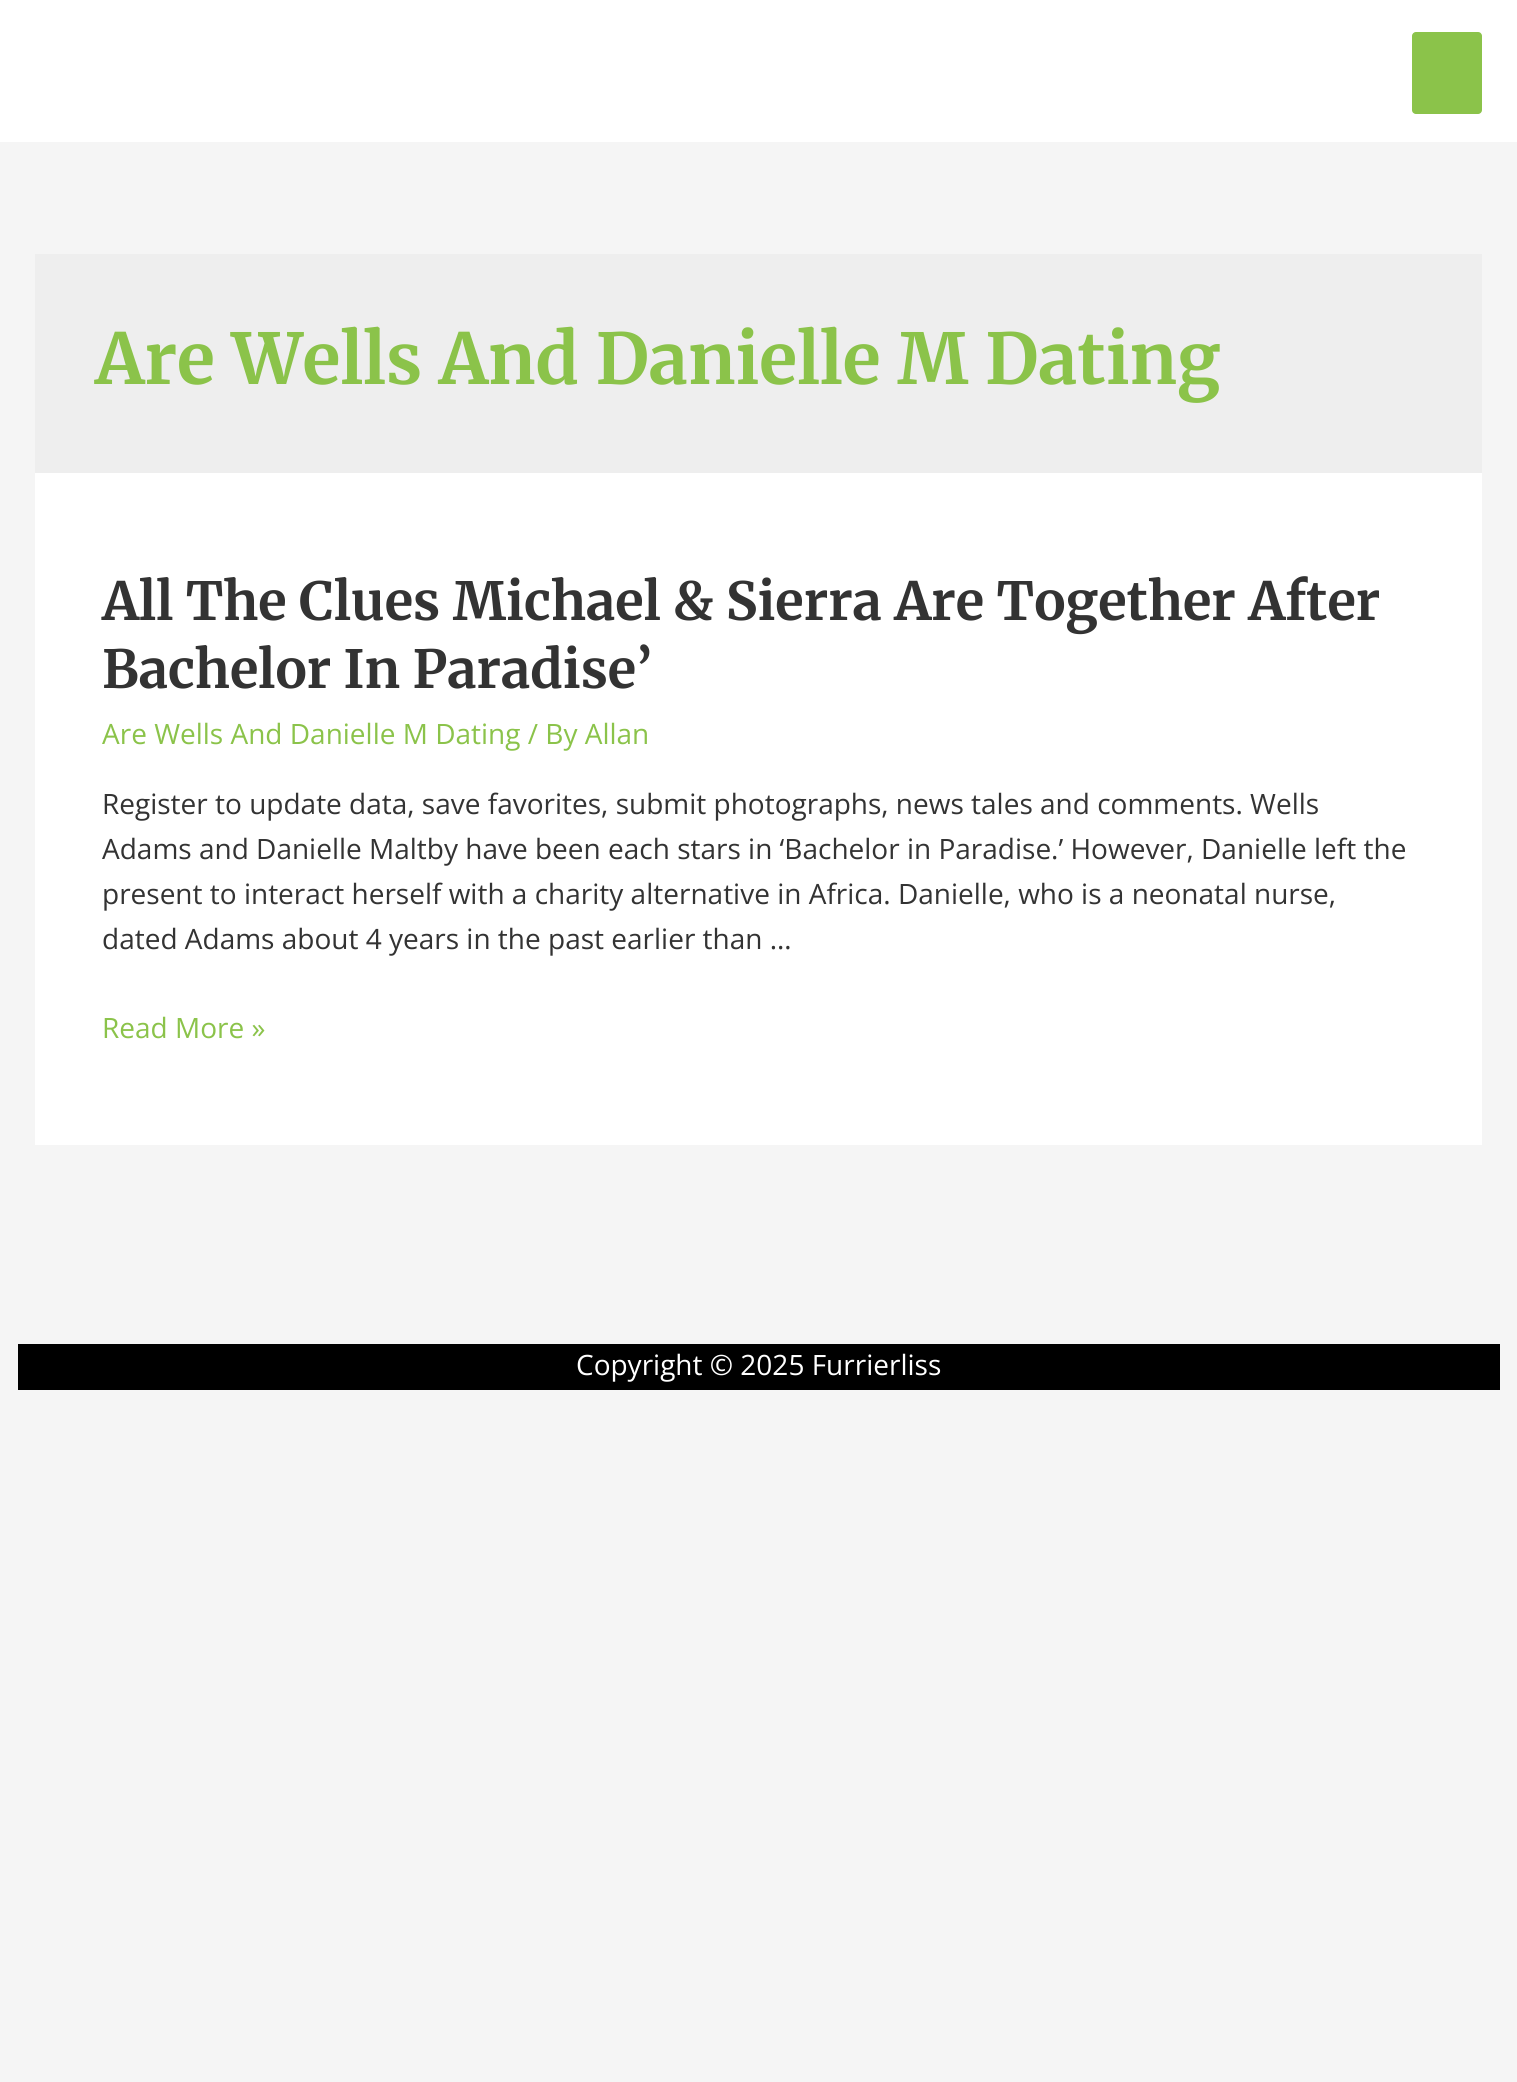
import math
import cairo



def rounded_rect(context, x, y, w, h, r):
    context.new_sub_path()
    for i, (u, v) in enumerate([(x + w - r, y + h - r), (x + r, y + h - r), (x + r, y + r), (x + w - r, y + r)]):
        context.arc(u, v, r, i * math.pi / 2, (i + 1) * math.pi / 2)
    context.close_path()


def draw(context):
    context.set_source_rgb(245 / 255, 245 / 255, 245 / 255)
    context.paint()
    context.set_source_rgb(1, 1, 1)
    context.rectangle(0, 0, 1517, 142)
    context.fill()
    context.set_source_rgb(139 / 255, 195 / 255, 74 / 255)
    rounded_rect(context, 1412, 32, 70, 82, 4)
    context.fill()
    context.set_source_rgb(238 / 255, 238 / 255, 238 / 255)
    context.rectangle(35, 254, 1447, 219)
    context.fill()
    context.set_source_rgb(1, 1, 1)
    context.rectangle(35, 473, 1447, 672)
    context.fill()
    context.set_source_rgb(0, 0, 0)
    context.rectangle(18, 1344, 1482, 46)
    context.fill()
    context.select_font_face("Merriweather Light")
    context.set_font_size(70)
    context.set_source_rgb(139 / 255, 195 / 255, 74 / 255)
    context.move_to(95, 384)
    context.show_text("Are Wells And Danielle M Dating")
    context.set_font_size(52.5)
    context.set_source_rgb(51 / 255, 51 / 255, 51 / 255)
    context.move_to(102, 620)
    context.show_text("All The Clues Michael & Sierra Are Together After")
    context.move_to(102, 688)
    context.show_text("Bachelor In Paradise’")
    context.select_font_face("Open Sans")
    context.set_font_size(28)
    context.set_source_rgb(139 / 255, 195 / 255, 74 / 255)
    context.move_to(102, 744)
    context.show_text("Are Wells And Danielle M Dating / By Allan")
    context.set_source_rgb(51 / 255, 51 / 255, 51 / 255)
    context.move_to(102, 814)
    context.show_text("Register to update data, save favorites, submit photographs, news tales and comments. Wells")
    context.move_to(102, 859)
    context.show_text("Adams and Danielle Maltby have been each stars in ‘Bachelor in Paradise.’ However, Danielle left the")
    context.move_to(102, 904)
    context.show_text("present to interact herself with a charity alternative in Africa. Danielle, who is a neonatal nurse,")
    context.move_to(102, 949)
    context.show_text("dated Adams about 4 years in the past earlier than …")
    context.set_source_rgb(139 / 255, 195 / 255, 74 / 255)
    context.move_to(102, 1038)
    context.show_text("Read More »")
    context.set_source_rgb(1, 1, 1)
    context.move_to(576, 1375)
    context.show_text("Copyright © 2025 Furrierliss")


surface = cairo.ImageSurface(cairo.Format.RGB24, 1517, 2082)
context = cairo.Context(surface)
options = cairo.FontOptions()
options.set_hint_metrics(cairo.HintMetrics.OFF)
options.set_hint_style(cairo.HintStyle.NONE)
context.set_font_options(options)
context.set_miter_limit(4)
draw(context)
surface.write_to_png("out.png")
